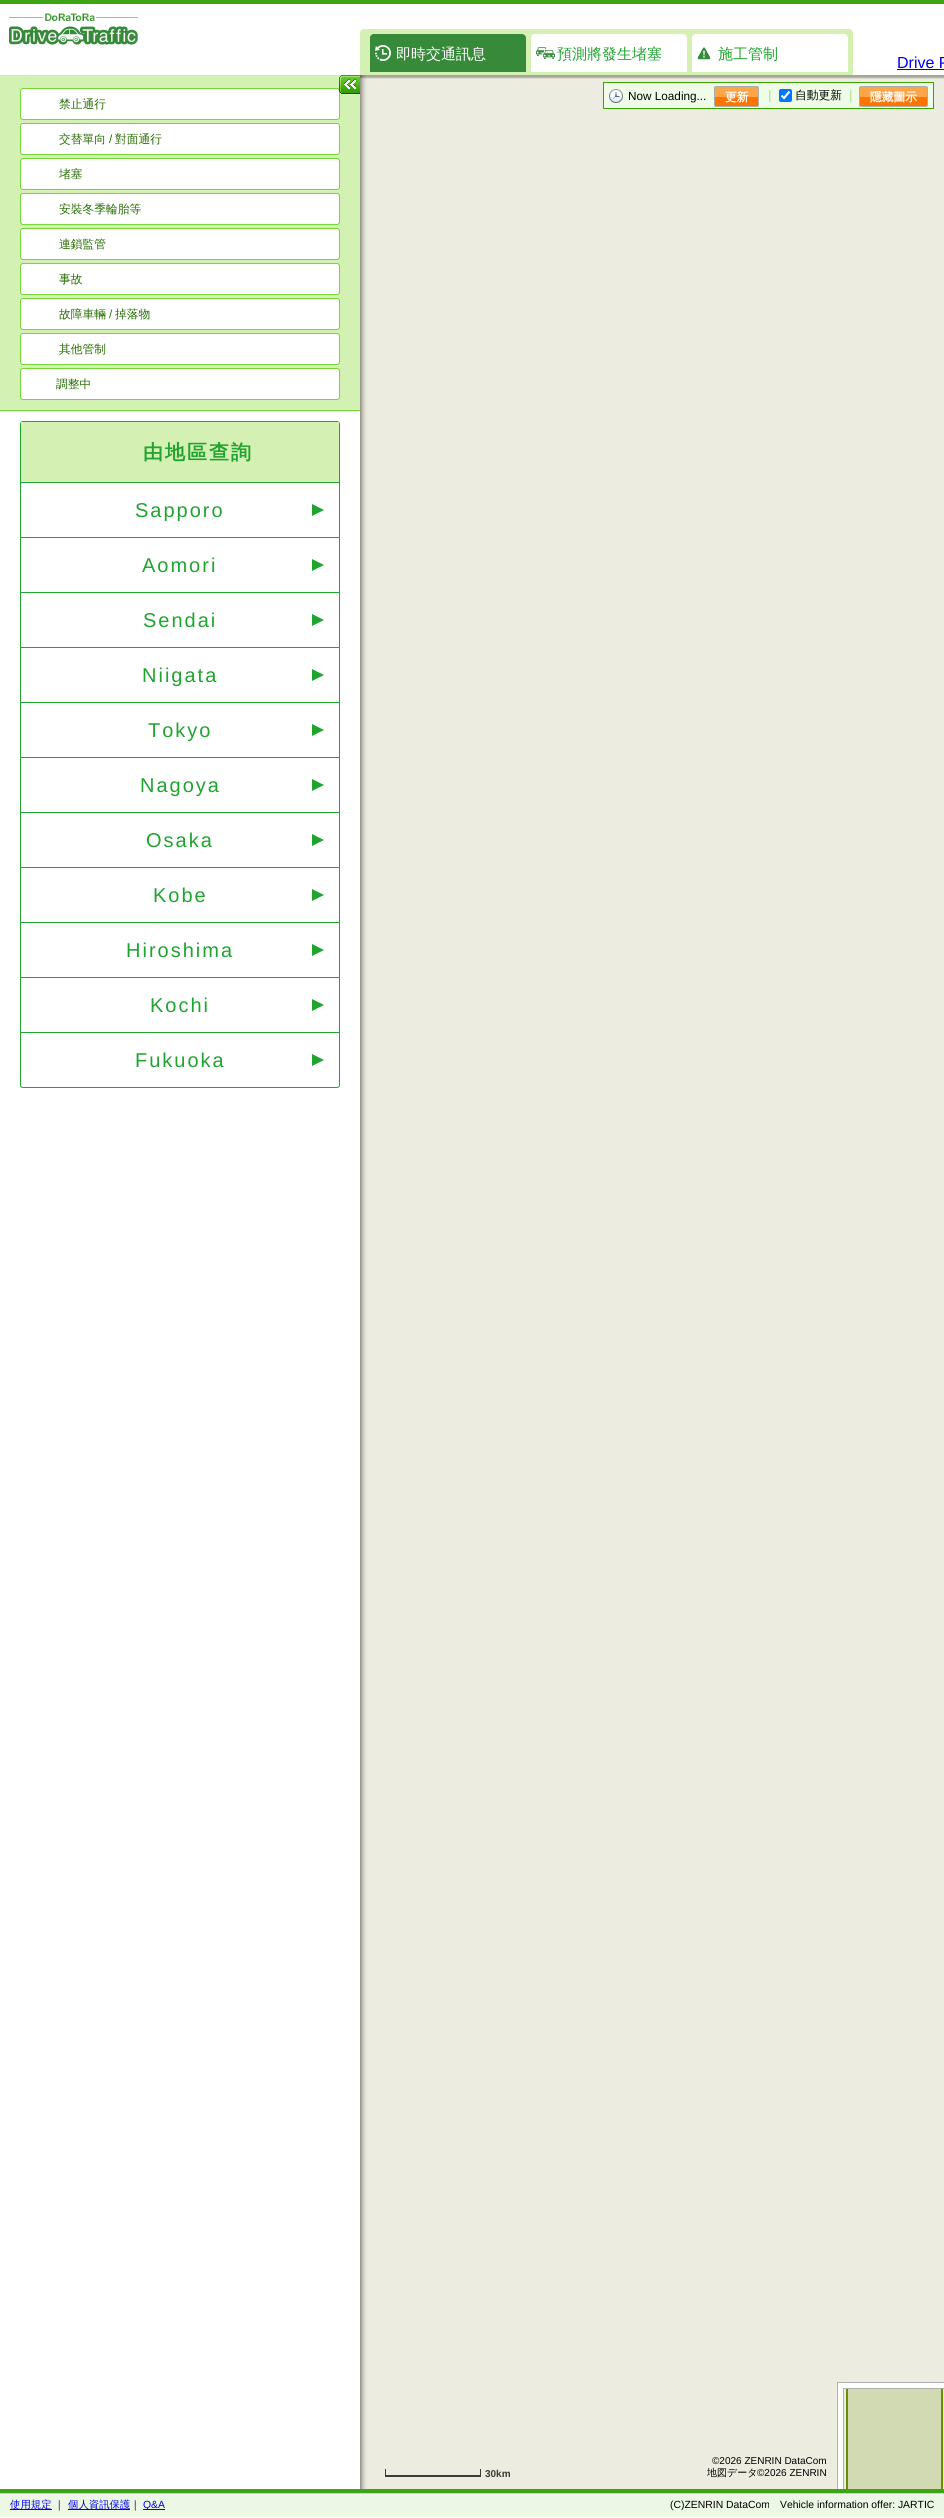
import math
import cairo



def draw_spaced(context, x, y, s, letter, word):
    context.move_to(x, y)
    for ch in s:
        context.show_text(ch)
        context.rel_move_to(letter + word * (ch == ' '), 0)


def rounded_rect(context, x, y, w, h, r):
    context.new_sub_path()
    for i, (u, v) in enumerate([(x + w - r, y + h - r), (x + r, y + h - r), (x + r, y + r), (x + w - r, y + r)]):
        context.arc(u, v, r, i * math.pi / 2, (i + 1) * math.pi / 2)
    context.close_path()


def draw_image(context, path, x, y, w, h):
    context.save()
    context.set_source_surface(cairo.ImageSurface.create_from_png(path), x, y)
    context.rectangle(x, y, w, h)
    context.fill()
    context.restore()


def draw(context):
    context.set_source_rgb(1, 1, 1)
    context.paint()
    context.set_source_rgb(61 / 255, 164 / 255, 20 / 255)
    context.rectangle(0, 0, 944, 4)
    context.fill()
    draw_image(context, "images/1.png", 9, 13, 129, 32)
    context.set_source_rgb(213 / 255, 240 / 255, 179 / 255)
    context.new_path()
    context.move_to(364, 29)
    context.line_to(849, 29)
    context.curve_to(851, 29, 853, 31, 853, 33)
    context.line_to(853, 75)
    context.line_to(360, 75)
    context.line_to(360, 33)
    context.curve_to(360, 31, 362, 29, 364, 29)
    context.close_path()
    context.fill()
    context.set_source_rgb(54 / 255, 138 / 255, 57 / 255)
    context.new_path()
    context.move_to(374, 34)
    context.line_to(522, 34)
    context.curve_to(524, 34, 526, 36, 526, 38)
    context.line_to(526, 72)
    context.line_to(370, 72)
    context.line_to(370, 38)
    context.curve_to(370, 36, 372, 34, 374, 34)
    context.close_path()
    context.fill()
    draw_image(context, "images/2.png", 370, 34, 122, 27)
    context.set_source_rgb(1, 1, 1)
    context.new_path()
    context.move_to(535, 34)
    context.line_to(683, 34)
    context.curve_to(685, 34, 687, 36, 687, 38)
    context.line_to(687, 72)
    context.line_to(531, 72)
    context.line_to(531, 38)
    context.curve_to(531, 36, 533, 34, 535, 34)
    context.close_path()
    context.fill()
    draw_image(context, "images/3.png", 531, 34, 24, 25)
    context.new_path()
    context.move_to(696, 34)
    context.line_to(844, 34)
    context.curve_to(846, 34, 848, 36, 848, 38)
    context.line_to(848, 72)
    context.line_to(692, 72)
    context.line_to(692, 38)
    context.curve_to(692, 36, 694, 34, 696, 34)
    context.close_path()
    context.fill()
    draw_image(context, "images/4.png", 692, 34, 19, 26)
    context.set_source_rgb(0, 0, 238 / 255)
    context.rectangle(897, 69, 47, 1)
    context.fill()
    context.set_source_rgb(211 / 255, 241 / 255, 179 / 255)
    context.rectangle(0, 75, 360, 335)
    context.fill()
    context.set_source_rgb(1, 1, 1)
    rounded_rect(context, 20.5, 88.5, 319, 31, 2.5)
    context.fill_preserve()
    context.set_source_rgb(118 / 255, 213 / 255, 57 / 255)
    context.set_line_width(1)
    context.stroke()
    draw_image(context, "images/5.png", 339, 75, 21, 19)
    context.set_source_rgb(236 / 255, 236 / 255, 224 / 255)
    context.rectangle(360, 75, 584, 2414)
    context.fill()
    draw_image(context, "images/6.png", 360, 75, 584, 4)
    draw_image(context, "images/7.png", 360, 75, 7, 2414)
    context.set_source_rgb(239 / 255, 252 / 255, 231 / 255)
    context.rectangle(603.5, 82.5, 330, 26)
    context.fill_preserve()
    context.set_source_rgb(58 / 255, 164 / 255, 0)
    context.stroke()
    draw_image(context, "images/8.png", 609, 89, 14, 14)
    context.set_source_rgb(253 / 255, 165 / 255, 73 / 255)
    context.rectangle(714, 87, 45, 10)
    context.fill()
    context.set_source_rgb(1, 116 / 255, 0)
    context.rectangle(714, 97, 45, 9)
    context.fill()
    rounded_rect(context, 714.5, 86.5, 44, 20, 1.5)
    context.set_source_rgb(172 / 255, 172 / 255, 172 / 255)
    context.stroke()
    context.set_source_rgb(0, 117 / 255, 1)
    rounded_rect(context, 779, 89, 13, 13, 2)
    context.fill()
    context.new_path()
    context.move_to(781.5, 95.5)
    context.line_to(784, 98)
    context.line_to(789.5, 91.5)
    context.set_source_rgb(1, 1, 1)
    context.set_line_width(2.1)
    context.stroke()
    context.set_source_rgb(253 / 255, 165 / 255, 73 / 255)
    context.rectangle(859, 87, 69, 10)
    context.fill()
    context.set_source_rgb(1, 116 / 255, 0)
    context.rectangle(859, 97, 69, 9)
    context.fill()
    rounded_rect(context, 859.5, 86.5, 68, 20, 1.5)
    context.set_source_rgb(172 / 255, 172 / 255, 172 / 255)
    context.set_line_width(1)
    context.stroke()
    context.set_source_rgb(118 / 255, 213 / 255, 57 / 255)
    context.rectangle(0, 410, 360, 1)
    context.fill()
    context.set_source_rgb(1, 1, 1)
    rounded_rect(context, 20.5, 123.5, 319, 31, 2.5)
    context.fill_preserve()
    context.set_source_rgb(118 / 255, 213 / 255, 57 / 255)
    context.stroke()
    context.set_source_rgb(1, 1, 1)
    rounded_rect(context, 20.5, 158.5, 319, 31, 2.5)
    context.fill_preserve()
    context.set_source_rgb(118 / 255, 213 / 255, 57 / 255)
    context.stroke()
    context.set_source_rgb(1, 1, 1)
    rounded_rect(context, 20.5, 193.5, 319, 31, 2.5)
    context.fill_preserve()
    context.set_source_rgb(118 / 255, 213 / 255, 57 / 255)
    context.stroke()
    context.set_source_rgb(1, 1, 1)
    rounded_rect(context, 20.5, 228.5, 319, 31, 2.5)
    context.fill_preserve()
    context.set_source_rgb(118 / 255, 213 / 255, 57 / 255)
    context.stroke()
    context.set_source_rgb(1, 1, 1)
    rounded_rect(context, 20.5, 263.5, 319, 31, 2.5)
    context.fill_preserve()
    context.set_source_rgb(118 / 255, 213 / 255, 57 / 255)
    context.stroke()
    context.set_source_rgb(1, 1, 1)
    rounded_rect(context, 20.5, 298.5, 319, 31, 2.5)
    context.fill_preserve()
    context.set_source_rgb(118 / 255, 213 / 255, 57 / 255)
    context.stroke()
    context.set_source_rgb(1, 1, 1)
    rounded_rect(context, 20.5, 333.5, 319, 31, 2.5)
    context.fill_preserve()
    context.set_source_rgb(118 / 255, 213 / 255, 57 / 255)
    context.stroke()
    context.set_source_rgb(1, 1, 1)
    rounded_rect(context, 20.5, 368.5, 319, 31, 2.5)
    context.fill_preserve()
    context.set_source_rgb(118 / 255, 213 / 255, 57 / 255)
    context.stroke()
    rounded_rect(context, 20.5, 421.5, 319, 666, 2.5)
    context.set_source_rgb(31 / 255, 164 / 255, 48 / 255)
    context.stroke()
    context.set_source_rgb(213 / 255, 240 / 255, 179 / 255)
    context.rectangle(21, 422, 318, 60)
    context.fill()
    context.set_source_rgb(31 / 255, 164 / 255, 48 / 255)
    context.rectangle(21, 482, 318, 1)
    context.fill()
    context.rectangle(21, 537, 318, 1)
    context.fill()
    context.set_source_rgb(32 / 255, 164 / 255, 48 / 255)
    context.new_path()
    context.move_to(312, 516)
    context.line_to(312, 504)
    context.line_to(324, 510)
    context.close_path()
    context.fill()
    context.set_source_rgb(31 / 255, 164 / 255, 48 / 255)
    context.rectangle(21, 592, 318, 1)
    context.fill()
    context.set_source_rgb(32 / 255, 164 / 255, 48 / 255)
    context.new_path()
    context.move_to(312, 571)
    context.line_to(312, 559)
    context.line_to(324, 565)
    context.close_path()
    context.fill()
    context.set_source_rgb(31 / 255, 164 / 255, 48 / 255)
    context.rectangle(21, 647, 318, 1)
    context.fill()
    context.set_source_rgb(32 / 255, 164 / 255, 48 / 255)
    context.new_path()
    context.move_to(312, 626)
    context.line_to(312, 614)
    context.line_to(324, 620)
    context.close_path()
    context.fill()
    context.set_source_rgb(31 / 255, 164 / 255, 48 / 255)
    context.rectangle(21, 702, 318, 1)
    context.fill()
    context.set_source_rgb(32 / 255, 164 / 255, 48 / 255)
    context.new_path()
    context.move_to(312, 681)
    context.line_to(312, 669)
    context.line_to(324, 675)
    context.close_path()
    context.fill()
    context.set_source_rgb(31 / 255, 164 / 255, 48 / 255)
    context.rectangle(21, 757, 318, 1)
    context.fill()
    context.set_source_rgb(32 / 255, 164 / 255, 48 / 255)
    context.new_path()
    context.move_to(312, 736)
    context.line_to(312, 724)
    context.line_to(324, 730)
    context.close_path()
    context.fill()
    context.set_source_rgb(31 / 255, 164 / 255, 48 / 255)
    context.rectangle(21, 812, 318, 1)
    context.fill()
    context.set_source_rgb(32 / 255, 164 / 255, 48 / 255)
    context.new_path()
    context.move_to(312, 791)
    context.line_to(312, 779)
    context.line_to(324, 785)
    context.close_path()
    context.fill()
    context.set_source_rgb(31 / 255, 164 / 255, 48 / 255)
    context.rectangle(21, 867, 318, 1)
    context.fill()
    context.set_source_rgb(32 / 255, 164 / 255, 48 / 255)
    context.new_path()
    context.move_to(312, 846)
    context.line_to(312, 834)
    context.line_to(324, 840)
    context.close_path()
    context.fill()
    context.set_source_rgb(31 / 255, 164 / 255, 48 / 255)
    context.rectangle(21, 922, 318, 1)
    context.fill()
    context.set_source_rgb(32 / 255, 164 / 255, 48 / 255)
    context.new_path()
    context.move_to(312, 901)
    context.line_to(312, 889)
    context.line_to(324, 895)
    context.close_path()
    context.fill()
    context.set_source_rgb(31 / 255, 164 / 255, 48 / 255)
    context.rectangle(21, 977, 318, 1)
    context.fill()
    context.set_source_rgb(32 / 255, 164 / 255, 48 / 255)
    context.new_path()
    context.move_to(312, 956)
    context.line_to(312, 944)
    context.line_to(324, 950)
    context.close_path()
    context.fill()
    context.set_source_rgb(31 / 255, 164 / 255, 48 / 255)
    context.rectangle(21, 1032, 318, 1)
    context.fill()
    context.set_source_rgb(32 / 255, 164 / 255, 48 / 255)
    context.new_path()
    context.move_to(312, 1011)
    context.line_to(312, 999)
    context.line_to(324, 1005)
    context.close_path()
    context.fill()
    context.new_path()
    context.move_to(312, 1066)
    context.line_to(312, 1054)
    context.line_to(324, 1060)
    context.close_path()
    context.fill()
    context.set_source_rgb(60 / 255, 60 / 255, 60 / 255)
    context.rectangle(480, 2469, 1, 8)
    context.fill()
    context.rectangle(385, 2475, 96, 2)
    context.fill()
    context.rectangle(385, 2469, 1, 8)
    context.fill()
    context.set_source_rgb(1, 1, 1)
    context.rectangle(838, 2383, 106, 106)
    context.fill()
    context.set_source_rgb(178 / 255, 175 / 255, 175 / 255)
    context.rectangle(837, 2382, 107, 1)
    context.fill()
    context.rectangle(837, 2382, 1, 107)
    context.fill()
    context.rectangle(843, 2388, 101, 1)
    context.fill()
    context.rectangle(843, 2388, 1, 101)
    context.fill()
    context.set_source_rgb(236 / 255, 236 / 255, 224 / 255)
    context.rectangle(844, 2389, 100, 100)
    context.fill()
    context.save()
    context.rectangle(844, 2389, 100, 100)
    context.clip()
    context.rectangle(847, 2245, 95, 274)
    context.set_source_rgb(105 / 255, 144 / 255, 2 / 255)
    context.set_line_width(2)
    context.stroke()
    context.restore()
    context.set_source_rgb(210 / 255, 218 / 255, 180 / 255)
    context.rectangle(848, 2389, 93, 100)
    context.fill()
    context.set_source_rgb(61 / 255, 164 / 255, 20 / 255)
    context.rectangle(0, 2489, 944, 4)
    context.fill()
    context.set_source_rgb(207 / 255, 208 / 255, 207 / 255)
    context.rectangle(0, 2493, 944, 1)
    context.fill()
    context.set_source_rgb(237 / 255, 247 / 255, 229 / 255)
    context.rectangle(0, 2495, 944, 22)
    context.fill()
    context.set_source_rgb(0, 0, 238 / 255)
    context.rectangle(10, 2509, 42, 1)
    context.fill()
    context.rectangle(68, 2509, 62, 1)
    context.fill()
    context.rectangle(143, 2509, 22, 1)
    context.fill()
    context.select_font_face("WenQuanYi Zen Hei Medium")
    context.set_font_size(15)
    context.set_source_rgb(1, 1, 1)
    context.move_to(396, 59)
    context.show_text("即時交通訊息")
    context.set_source_rgb(32 / 255, 164 / 255, 48 / 255)
    context.move_to(557, 59)
    context.show_text("預測將發生堵塞")
    context.move_to(718, 59)
    context.show_text("施工管制")
    context.select_font_face("Liberation Sans")
    context.set_font_size(16)
    context.set_source_rgb(0, 0, 238 / 255)
    context.move_to(897, 68)
    context.show_text("Drive P")
    context.set_font_size(11.75)
    context.set_source_rgb(0, 0, 0)
    context.move_to(628, 100)
    context.show_text("Now Loading...")
    context.select_font_face("WenQuanYi Zen Hei", cairo.FontSlant.NORMAL, cairo.FontWeight.BOLD)
    context.set_source_rgb(1, 1, 1)
    context.move_to(725, 101)
    context.show_text("更新")
    context.select_font_face("WenQuanYi Zen Hei Medium")
    context.set_source_rgb(136 / 255, 201 / 255, 105 / 255)
    context.move_to(764, 99)
    context.show_text("｜")
    context.set_source_rgb(0, 0, 0)
    context.move_to(795, 99)
    context.show_text("自動更新")
    context.set_source_rgb(136 / 255, 201 / 255, 105 / 255)
    context.move_to(845, 99)
    context.show_text("｜")
    context.select_font_face("WenQuanYi Zen Hei", cairo.FontSlant.NORMAL, cairo.FontWeight.BOLD)
    context.set_source_rgb(1, 1, 1)
    context.move_to(870, 101)
    context.show_text("隱藏圖示")
    context.select_font_face("WenQuanYi Zen Hei Medium")
    context.set_source_rgb(39 / 255, 108 / 255, 2 / 255)
    context.move_to(59, 108)
    context.show_text("禁止通行")
    context.move_to(59, 143)
    context.show_text("交替單向")
    context.select_font_face("Liberation Sans")
    context.move_to(109, 143)
    context.show_text("/")
    context.select_font_face("WenQuanYi Zen Hei Medium")
    context.move_to(115, 143)
    context.show_text("對面通行")
    context.move_to(59, 178)
    context.show_text("堵塞")
    context.move_to(59, 213)
    context.show_text("安裝冬季輪胎等")
    context.move_to(59, 248)
    context.show_text("連鎖監管")
    context.move_to(59, 283)
    context.show_text("事故")
    context.move_to(59, 318)
    context.show_text("故障車輛")
    context.select_font_face("Liberation Sans")
    context.move_to(109, 318)
    context.show_text("/")
    context.select_font_face("WenQuanYi Zen Hei Medium")
    context.move_to(115, 318)
    context.show_text("掉落物")
    context.move_to(59, 353)
    context.show_text("其他管制")
    context.move_to(56, 388)
    context.show_text("調整中")
    context.select_font_face("WenQuanYi Zen Hei", cairo.FontSlant.NORMAL, cairo.FontWeight.BOLD)
    context.set_font_size(20)
    context.set_source_rgb(32 / 255, 164 / 255, 48 / 255)
    draw_spaced(context, 143, 459, "由地區查詢", 2, 0)
    context.select_font_face("Liberation Sans")
    draw_spaced(context, 135, 517, "Sapporo", 2, 0)
    draw_spaced(context, 142, 572, "Aomori", 2, 0)
    draw_spaced(context, 143, 627, "Sendai", 2, 0)
    draw_spaced(context, 142, 682, "Niigata", 2, 0)
    draw_spaced(context, 148, 737, "Tokyo", 2, 0)
    draw_spaced(context, 140, 792, "Nagoya", 2, 0)
    draw_spaced(context, 146, 847, "Osaka", 2, 0)
    draw_spaced(context, 153, 902, "Kobe", 2, 0)
    draw_spaced(context, 126, 957, "Hiroshima", 2, 0)
    draw_spaced(context, 150, 1012, "Kochi", 2, 0)
    draw_spaced(context, 135, 1067, "Fukuoka", 2, 0)
    context.select_font_face("Liberation Sans", cairo.FontSlant.NORMAL, cairo.FontWeight.BOLD)
    context.set_font_size(10)
    context.set_source_rgb(60 / 255, 60 / 255, 60 / 255)
    context.move_to(485, 2477)
    context.show_text("30km")
    context.select_font_face("Liberation Sans")
    context.set_source_rgb(0, 0, 0)
    context.move_to(712, 2464)
    context.show_text("©2026 ZENRIN DataCom")
    context.select_font_face("WenQuanYi Zen Hei Medium")
    context.move_to(707, 2476)
    context.show_text("地図データ")
    context.select_font_face("Liberation Sans")
    context.move_to(757, 2476)
    context.show_text("©2026 ZENRIN")
    context.select_font_face("WenQuanYi Zen Hei Medium")
    context.set_font_size(10.4)
    context.set_source_rgb(0, 0, 238 / 255)
    context.move_to(10, 2508)
    context.show_text("使用規定")
    context.set_source_rgb(0, 0, 0)
    context.move_to(54, 2508)
    context.show_text("｜")
    context.set_source_rgb(0, 0, 238 / 255)
    context.move_to(68, 2508)
    context.show_text("個人資訊保護")
    context.set_source_rgb(0, 0, 0)
    context.move_to(130, 2508)
    context.show_text("｜")
    context.select_font_face("Liberation Sans")
    context.set_source_rgb(0, 0, 238 / 255)
    context.move_to(143, 2508)
    context.show_text("Q&A")
    context.set_source_rgb(0, 0, 0)
    context.move_to(670, 2508)
    context.show_text("(C)ZENRIN DataCom")
    context.move_to(780, 2508)
    context.show_text("Vehicle information offer: JARTIC")


surface = cairo.ImageSurface(cairo.Format.RGB24, 944, 2518)
context = cairo.Context(surface)
options = cairo.FontOptions()
options.set_hint_metrics(cairo.HintMetrics.OFF)
options.set_hint_style(cairo.HintStyle.NONE)
context.set_font_options(options)
context.set_miter_limit(4)
draw(context)
surface.write_to_png("out.png")
